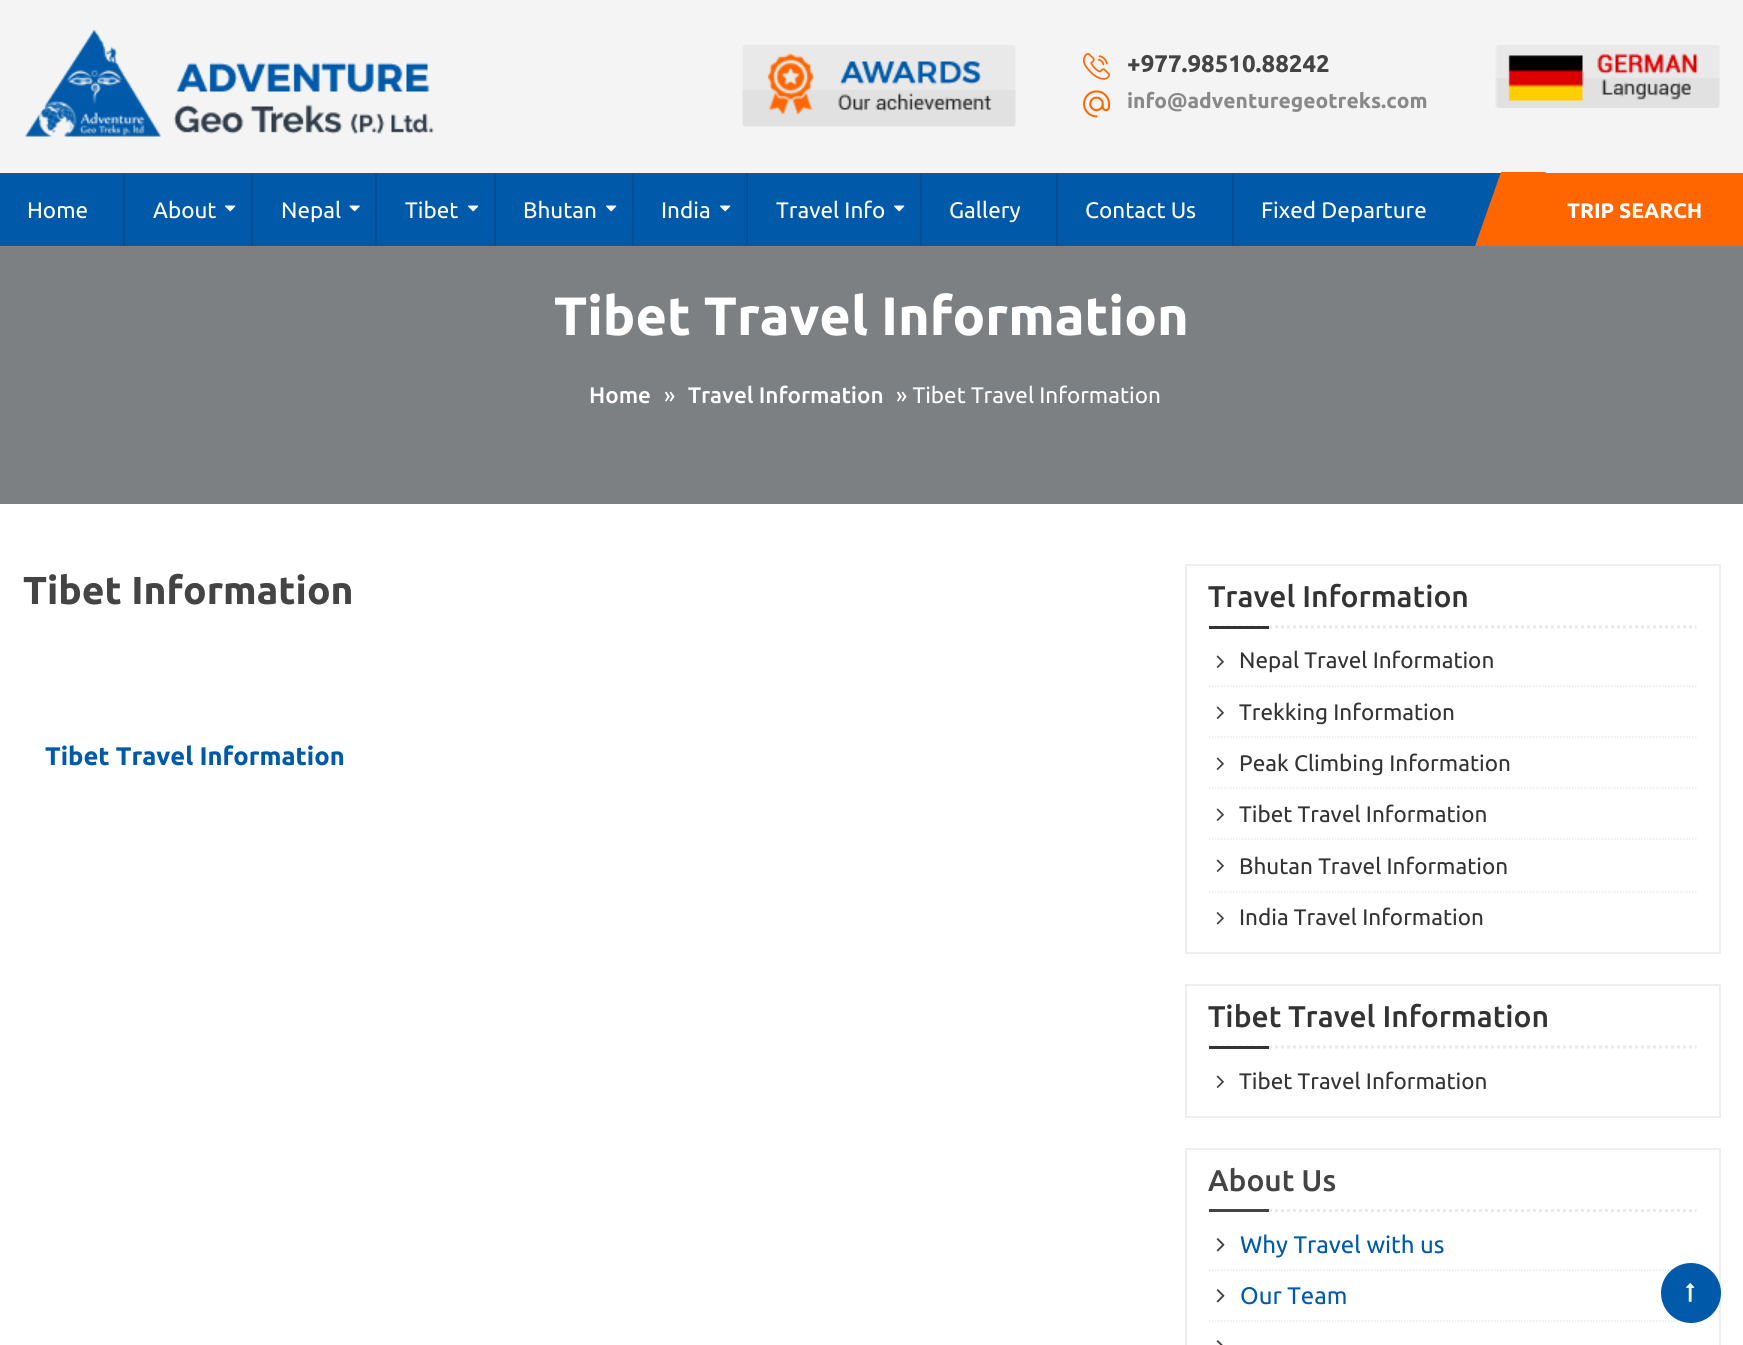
import math
import cairo



def draw_image(context, path, x, y, w, h):
    context.save()
    context.set_source_surface(cairo.ImageSurface.create_from_png(path), x, y)
    context.rectangle(x, y, w, h)
    context.fill()
    context.restore()


def draw(context):
    context.set_source_rgb(1, 1, 1)
    context.paint()
    context.set_source_rgb(244 / 255, 244 / 255, 244 / 255)
    context.rectangle(0, 0, 1743, 173)
    context.fill()
    draw_image(context, "images/1.png", 25, 30, 409, 107)
    draw_image(context, "images/2.png", 742, 45, 274, 82)
    draw_image(context, "images/3.png", 1083, 53, 27, 27)
    draw_image(context, "images/4.png", 1083, 90, 27, 28)
    draw_image(context, "images/5.png", 1495, 45, 225, 63)
    context.set_source_rgb(0, 90 / 255, 169 / 255)
    context.rectangle(0, 173, 1501, 73)
    context.fill()
    context.set_source_rgb(0, 81 / 255, 152 / 255)
    context.rectangle(123, 173, 2, 73)
    context.fill()
    context.rectangle(251, 173, 2, 73)
    context.fill()
    draw_image(context, "images/6.png", 225, 205, 11, 7)
    context.rectangle(375, 173, 2, 73)
    context.fill()
    draw_image(context, "images/7.png", 349, 205, 11, 7)
    context.rectangle(494, 173, 2, 73)
    context.fill()
    draw_image(context, "images/6.png", 468, 205, 11, 7)
    context.rectangle(632, 173, 2, 73)
    context.fill()
    draw_image(context, "images/6.png", 606, 205, 11, 7)
    context.rectangle(746, 173, 2, 73)
    context.fill()
    draw_image(context, "images/6.png", 720, 205, 11, 7)
    context.rectangle(920, 173, 2, 73)
    context.fill()
    draw_image(context, "images/6.png", 894, 205, 11, 7)
    context.rectangle(1056, 173, 2, 73)
    context.fill()
    context.rectangle(1232, 173, 2, 73)
    context.fill()
    context.set_source_rgb(1, 102 / 255, 0)
    context.rectangle(1520, 173, 223, 73)
    context.fill()
    context.new_path()
    context.move_to(1501, 172)
    context.line_to(1546, 172)
    context.line_to(1520, 246)
    context.line_to(1475, 246)
    context.close_path()
    context.fill()
    context.set_source_rgb(125 / 255, 128 / 255, 131 / 255)
    context.rectangle(0, 246, 1743, 258)
    context.fill()
    context.rectangle(1186, 565, 534, 388)
    context.set_source_rgb(238 / 255, 238 / 255, 238 / 255)
    context.stroke()
    context.new_path()
    context.move_to(1209, 627)
    context.line_to(1696.5, 627)
    context.set_source_rgb(230 / 255, 233 / 255, 238 / 255)
    context.set_line_width(3)
    context.set_dash([3, 3])
    context.stroke()
    context.set_source_rgb(51 / 255, 51 / 255, 51 / 255)
    context.rectangle(1209, 626, 60, 3)
    context.fill()
    context.new_path()
    context.move_to(1209, 686)
    context.line_to(1696.5, 686)
    context.set_source_rgb(230 / 255, 233 / 255, 238 / 255)
    context.set_line_width(1.5)
    context.set_dash([1.5, 1.5])
    context.stroke()
    draw_image(context, "images/8.png", 1216, 655, 8, 13)
    context.new_path()
    context.move_to(1209, 737)
    context.line_to(1696.5, 737)
    context.stroke()
    draw_image(context, "images/8.png", 1216, 706, 8, 13)
    context.new_path()
    context.move_to(1209, 788)
    context.line_to(1696.5, 788)
    context.stroke()
    draw_image(context, "images/8.png", 1216, 757, 8, 13)
    context.new_path()
    context.move_to(1209, 839)
    context.line_to(1696.5, 839)
    context.stroke()
    draw_image(context, "images/8.png", 1216, 808, 8, 13)
    context.new_path()
    context.move_to(1209, 892)
    context.line_to(1696.5, 892)
    context.stroke()
    draw_image(context, "images/8.png", 1216, 859, 8, 13)
    draw_image(context, "images/9.png", 1216, 912, 8, 13)
    context.rectangle(1186, 985, 534, 132)
    context.set_source_rgb(238 / 255, 238 / 255, 238 / 255)
    context.set_line_width(2)
    context.set_dash([])
    context.stroke()
    context.new_path()
    context.move_to(1209, 1047)
    context.line_to(1696.5, 1047)
    context.set_source_rgb(230 / 255, 233 / 255, 238 / 255)
    context.set_line_width(3)
    context.set_dash([3, 3])
    context.stroke()
    context.set_source_rgb(51 / 255, 51 / 255, 51 / 255)
    context.rectangle(1209, 1046, 60, 3)
    context.fill()
    draw_image(context, "images/8.png", 1216, 1075, 8, 13)
    context.rectangle(1186, 1149, 534, 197)
    context.set_source_rgb(238 / 255, 238 / 255, 238 / 255)
    context.set_line_width(2)
    context.set_dash([])
    context.stroke()
    context.new_path()
    context.move_to(1209, 1210.5)
    context.line_to(1696.5, 1210.5)
    context.set_source_rgb(230 / 255, 233 / 255, 238 / 255)
    context.set_line_width(3)
    context.set_dash([3, 3])
    context.stroke()
    context.set_source_rgb(68 / 255, 68 / 255, 68 / 255)
    context.rectangle(1209, 1209, 60, 3)
    context.fill()
    context.new_path()
    context.move_to(1209, 1270)
    context.line_to(1696.5, 1270)
    context.set_source_rgb(230 / 255, 233 / 255, 238 / 255)
    context.set_line_width(1.5)
    context.set_dash([1.5, 1.5])
    context.stroke()
    draw_image(context, "images/10.png", 1216, 1238, 9, 14)
    context.new_path()
    context.move_to(1209, 1321)
    context.line_to(1696.5, 1321)
    context.stroke()
    draw_image(context, "images/10.png", 1216, 1289, 9, 14)
    draw_image(context, "images/11.png", 1216, 1340, 7, 5)
    context.set_source_rgb(0, 90 / 255, 169 / 255)
    context.arc(1691, 1293, 30, 0, 2 * math.pi)
    context.fill()
    draw_image(context, "images/12.png", 1686, 1283, 9, 19)
    context.select_font_face("Ubuntu", cairo.FontSlant.NORMAL, cairo.FontWeight.BOLD)
    context.set_font_size(24)
    context.set_source_rgb(68 / 255, 68 / 255, 68 / 255)
    context.move_to(1127, 72)
    context.show_text("+977.98510.88242")
    context.set_font_size(21)
    context.set_source_rgb(137 / 255, 137 / 255, 137 / 255)
    context.move_to(1127, 108)
    context.show_text("info@adventuregeotreks.com")
    context.select_font_face("Ubuntu")
    context.set_font_size(22.5)
    context.set_source_rgb(1, 1, 1)
    context.move_to(27, 218)
    context.show_text("Home")
    context.move_to(153, 218)
    context.show_text("About")
    context.move_to(281, 218)
    context.show_text("Nepal")
    context.move_to(405, 218)
    context.show_text("Tibet")
    context.move_to(523, 218)
    context.show_text("Bhutan")
    context.move_to(661, 218)
    context.show_text("India")
    context.move_to(776, 218)
    context.show_text("Travel Info")
    context.move_to(949, 218)
    context.show_text("Gallery")
    context.move_to(1085, 218)
    context.show_text("Contact Us")
    context.move_to(1261, 218)
    context.show_text("Fixed Departure")
    context.select_font_face("Ubuntu", cairo.FontSlant.NORMAL, cairo.FontWeight.BOLD)
    context.set_font_size(21)
    context.move_to(1567, 218)
    context.show_text("TRIP SEARCH")
    context.set_font_size(54)
    context.move_to(554, 335)
    context.show_text("Tibet Travel Information")
    context.select_font_face("Ubuntu Medium")
    context.set_font_size(22.5)
    context.move_to(589, 403)
    context.show_text("Home")
    context.select_font_face("Ubuntu")
    context.move_to(664, 403)
    context.show_text("»")
    context.select_font_face("Ubuntu Medium")
    context.move_to(688, 403)
    context.show_text("Travel Information")
    context.select_font_face("Ubuntu")
    context.move_to(896, 403)
    context.show_text("» Tibet Travel Information")
    context.select_font_face("Ubuntu", cairo.FontSlant.NORMAL, cairo.FontWeight.BOLD)
    context.set_font_size(39)
    context.set_source_rgb(68 / 255, 68 / 255, 68 / 255)
    context.move_to(23, 604)
    context.show_text("Tibet Information")
    context.set_font_size(25.5)
    context.set_source_rgb(0, 90 / 255, 169 / 255)
    context.move_to(45, 765)
    context.show_text("Tibet Travel Information")
    context.select_font_face("Ubuntu Medium")
    context.set_font_size(30)
    context.set_source_rgb(51 / 255, 51 / 255, 51 / 255)
    context.move_to(1208, 607)
    context.show_text("Travel Information")
    context.select_font_face("Ubuntu")
    context.set_font_size(22.5)
    context.move_to(1239, 668)
    context.show_text("Nepal Travel Information")
    context.move_to(1239, 720)
    context.show_text("Trekking Information")
    context.move_to(1239, 771)
    context.show_text("Peak Climbing Information")
    context.move_to(1239, 822)
    context.show_text("Tibet Travel Information")
    context.move_to(1239, 874)
    context.show_text("Bhutan Travel Information")
    context.move_to(1239, 925)
    context.show_text("India Travel Information")
    context.select_font_face("Ubuntu Medium")
    context.set_font_size(30)
    context.move_to(1208, 1027)
    context.show_text("Tibet Travel Information")
    context.select_font_face("Ubuntu")
    context.set_font_size(22.5)
    context.move_to(1239, 1089)
    context.show_text("Tibet Travel Information")
    context.select_font_face("Ubuntu Medium")
    context.set_font_size(30)
    context.set_source_rgb(68 / 255, 68 / 255, 68 / 255)
    context.move_to(1208, 1191)
    context.show_text("About Us")
    context.select_font_face("Ubuntu")
    context.set_font_size(24)
    context.set_source_rgb(0, 90 / 255, 169 / 255)
    context.move_to(1240, 1253)
    context.show_text("Why Travel with us")
    context.move_to(1240, 1304)
    context.show_text("Our Team")


surface = cairo.ImageSurface(cairo.Format.RGB24, 1743, 1345)
context = cairo.Context(surface)
options = cairo.FontOptions()
options.set_hint_metrics(cairo.HintMetrics.OFF)
options.set_hint_style(cairo.HintStyle.NONE)
context.set_font_options(options)
context.set_miter_limit(4)
draw(context)
surface.write_to_png("out.png")
